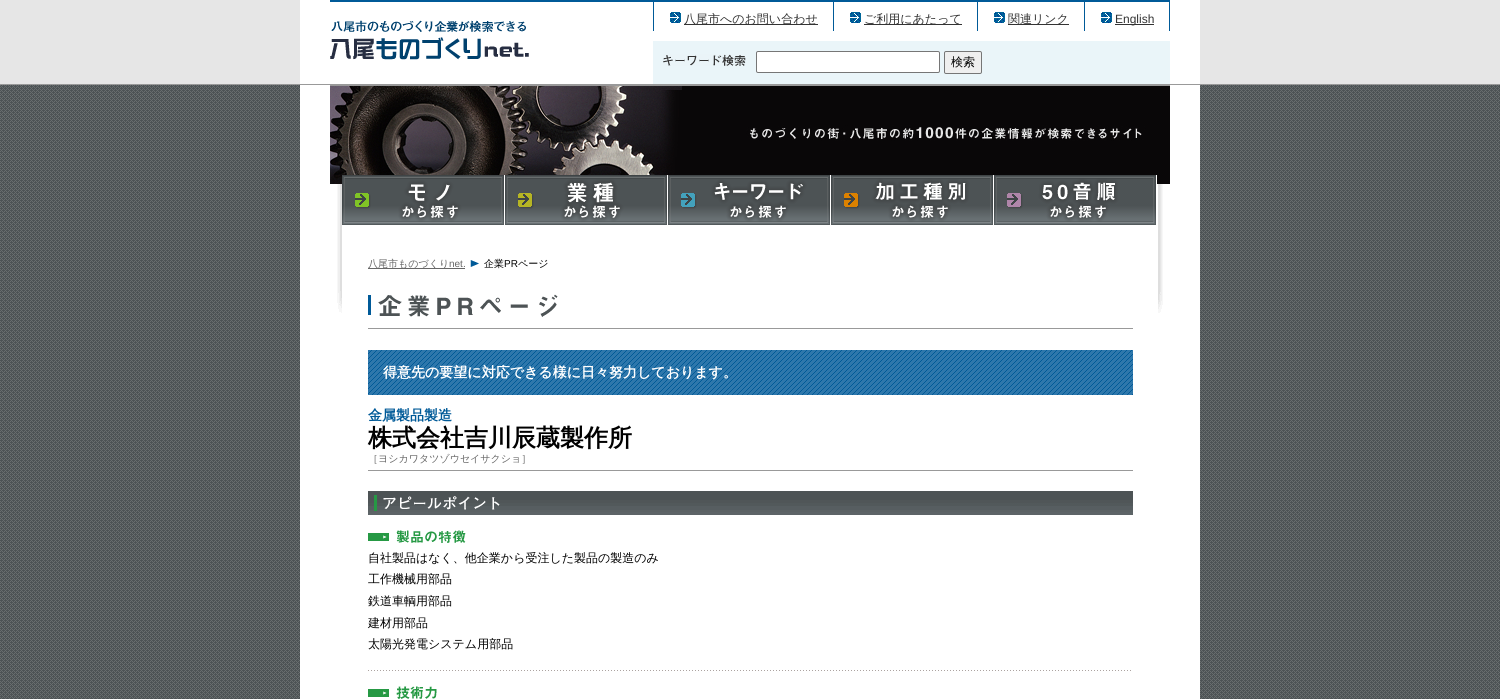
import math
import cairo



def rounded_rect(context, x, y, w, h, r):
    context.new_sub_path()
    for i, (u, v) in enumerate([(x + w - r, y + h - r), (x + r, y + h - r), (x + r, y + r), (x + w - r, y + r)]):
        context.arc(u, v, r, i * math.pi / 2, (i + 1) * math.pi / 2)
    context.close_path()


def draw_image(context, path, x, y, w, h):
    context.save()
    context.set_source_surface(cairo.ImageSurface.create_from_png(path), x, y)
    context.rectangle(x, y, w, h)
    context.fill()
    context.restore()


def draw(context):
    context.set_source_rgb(1, 1, 1)
    context.paint()
    draw_image(context, "images/1.png", 0, 85, 1500, 614)
    context.set_source_rgb(230 / 255, 230 / 255, 230 / 255)
    context.rectangle(0, 0, 1500, 84)
    context.fill()
    context.set_source_rgb(1, 1, 1)
    context.rectangle(300, 0, 900, 84)
    context.fill()
    context.set_source_rgb(0, 90 / 255, 152 / 255)
    context.rectangle(330, 0, 840, 2)
    context.fill()
    draw_image(context, "images/2.png", 330, 20, 199, 40)
    context.rectangle(1169, 2, 1, 29)
    context.fill()
    context.rectangle(653, 2, 1, 29)
    context.fill()
    draw_image(context, "images/3.png", 670, 12, 11, 11)
    context.set_source_rgb(51 / 255, 51 / 255, 51 / 255)
    context.rectangle(684, 24, 134, 1)
    context.fill()
    context.set_source_rgb(0, 90 / 255, 152 / 255)
    context.rectangle(833, 2, 1, 29)
    context.fill()
    draw_image(context, "images/3.png", 850, 12, 11, 11)
    context.set_source_rgb(51 / 255, 51 / 255, 51 / 255)
    context.rectangle(864, 24, 98, 1)
    context.fill()
    context.set_source_rgb(0, 90 / 255, 152 / 255)
    context.rectangle(977, 2, 1, 29)
    context.fill()
    draw_image(context, "images/3.png", 994, 12, 11, 11)
    context.set_source_rgb(51 / 255, 51 / 255, 51 / 255)
    context.rectangle(1008, 24, 61, 1)
    context.fill()
    context.set_source_rgb(0, 90 / 255, 152 / 255)
    context.rectangle(1084, 2, 1, 29)
    context.fill()
    draw_image(context, "images/3.png", 1101, 12, 11, 11)
    context.set_source_rgb(51 / 255, 51 / 255, 51 / 255)
    context.rectangle(1115, 24, 39, 1)
    context.fill()
    context.set_source_rgb(234 / 255, 245 / 255, 249 / 255)
    context.rectangle(653, 41, 517, 43)
    context.fill()
    draw_image(context, "images/4.png", 663, 54, 83, 12)
    context.set_source_rgb(1, 1, 1)
    rounded_rect(context, 756.5, 51.5, 183, 21, 1.5)
    context.fill_preserve()
    context.set_source_rgb(118 / 255, 118 / 255, 118 / 255)
    context.set_line_width(1)
    context.stroke()
    context.set_source_rgb(239 / 255, 239 / 255, 239 / 255)
    rounded_rect(context, 944.5, 51.5, 37, 22, 1.5)
    context.fill_preserve()
    context.set_source_rgb(118 / 255, 118 / 255, 118 / 255)
    context.stroke()
    context.set_source_rgb(153 / 255, 153 / 255, 153 / 255)
    context.rectangle(0, 84, 1500, 1)
    context.fill()
    context.set_source_rgb(1, 1, 1)
    context.rectangle(300, 85, 900, 614)
    context.fill()
    draw_image(context, "images/5.png", 337, 184, 826, 129)
    draw_image(context, "images/6.png", 330, 85, 840, 99)
    draw_image(context, "images/7.png", 342, 175, 163, 50)
    draw_image(context, "images/8.png", 505, 175, 163, 50)
    draw_image(context, "images/9.png", 668, 175, 163, 50)
    draw_image(context, "images/10.png", 831, 175, 163, 50)
    draw_image(context, "images/11.png", 994, 175, 163, 50)
    context.set_source_rgb(102 / 255, 102 / 255, 102 / 255)
    context.rectangle(368, 268, 97, 1)
    context.fill()
    draw_image(context, "images/12.png", 470, 260, 9, 7)
    draw_image(context, "images/13.png", 368, 295, 765, 34)
    draw_image(context, "images/14.png", 378, 294, 180, 23)
    draw_image(context, "images/15.png", 368, 350, 765, 45)
    context.set_source_rgb(153 / 255, 153 / 255, 153 / 255)
    context.rectangle(368, 470, 765, 1)
    context.fill()
    draw_image(context, "images/16.png", 368, 491, 765, 24)
    draw_image(context, "images/17.png", 368, 530, 98, 13)
    draw_image(context, "images/18.png", 368, 670, 763, 1)
    draw_image(context, "images/19.png", 368, 686, 69, 13)
    context.select_font_face("WenQuanYi Zen Hei Medium")
    context.set_font_size(12)
    context.set_source_rgb(51 / 255, 51 / 255, 51 / 255)
    context.move_to(684, 23)
    context.show_text("八尾市へのお問い合わせ")
    context.move_to(864, 23)
    context.show_text("ご利用にあたって")
    context.move_to(1008, 23)
    context.show_text("関連リンク")
    context.select_font_face("Liberation Sans")
    context.move_to(1115, 23)
    context.show_text("English")
    context.select_font_face("WenQuanYi Zen Hei Medium")
    context.set_source_rgb(0, 0, 0)
    context.move_to(951, 66)
    context.show_text("検索")
    context.set_font_size(10)
    context.set_source_rgb(102 / 255, 102 / 255, 102 / 255)
    context.move_to(368, 267)
    context.show_text("八尾市ものづくり")
    context.select_font_face("Liberation Sans")
    context.move_to(449, 267)
    context.show_text("net.")
    context.select_font_face("WenQuanYi Zen Hei Medium")
    context.set_source_rgb(0, 0, 0)
    context.move_to(484, 267)
    context.show_text("企業")
    context.select_font_face("Liberation Sans")
    context.move_to(504, 267)
    context.show_text("PR")
    context.select_font_face("WenQuanYi Zen Hei Medium")
    context.move_to(518, 267)
    context.show_text("ページ")
    context.select_font_face("WenQuanYi Zen Hei", cairo.FontSlant.NORMAL, cairo.FontWeight.BOLD)
    context.set_font_size(14)
    context.set_source_rgb(1, 1, 1)
    context.move_to(383, 377)
    context.show_text("得意先の要望に対応できる様に日々努力しております。")
    context.set_source_rgb(0, 90 / 255, 152 / 255)
    context.move_to(368, 420)
    context.show_text("金属製品製造")
    context.set_font_size(24)
    context.set_source_rgb(0, 0, 0)
    context.move_to(368, 446)
    context.show_text("株式会社吉川辰蔵製作所")
    context.select_font_face("WenQuanYi Zen Hei Medium")
    context.set_font_size(10)
    context.set_source_rgb(102 / 255, 102 / 255, 102 / 255)
    context.move_to(368, 462)
    context.show_text("［ヨシカワタツゾウセイサクショ］")
    context.set_font_size(12)
    context.set_source_rgb(0, 0, 0)
    context.move_to(368, 562)
    context.show_text("自社製品はなく、他企業から受注した製品の製造のみ")
    context.move_to(368, 583)
    context.show_text("工作機械用部品")
    context.move_to(368, 605)
    context.show_text("鉄道車輌用部品")
    context.move_to(368, 627)
    context.show_text("建材用部品")
    context.move_to(368, 648)
    context.show_text("太陽光発電システム用部品")


surface = cairo.ImageSurface(cairo.Format.RGB24, 1500, 699)
context = cairo.Context(surface)
options = cairo.FontOptions()
options.set_hint_metrics(cairo.HintMetrics.OFF)
options.set_hint_style(cairo.HintStyle.NONE)
context.set_font_options(options)
context.set_miter_limit(4)
draw(context)
surface.write_to_png("out.png")
